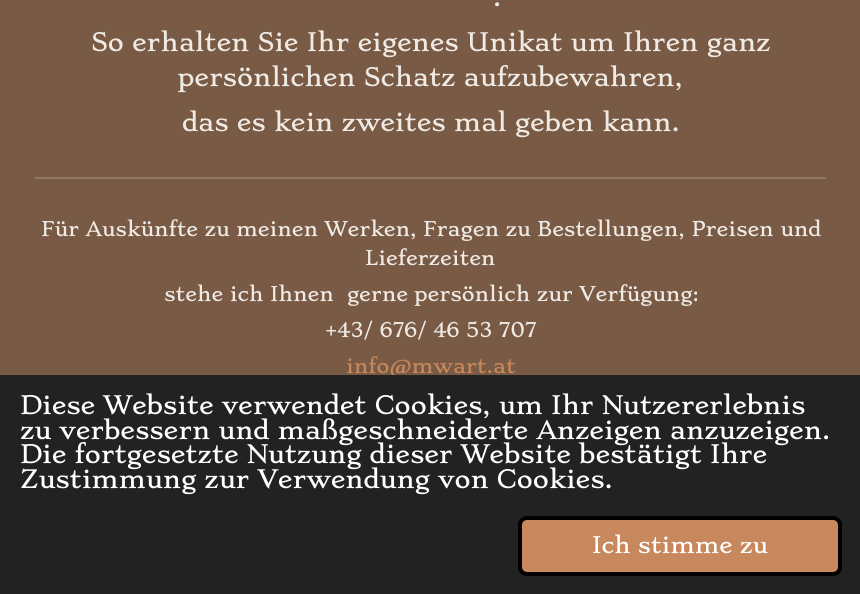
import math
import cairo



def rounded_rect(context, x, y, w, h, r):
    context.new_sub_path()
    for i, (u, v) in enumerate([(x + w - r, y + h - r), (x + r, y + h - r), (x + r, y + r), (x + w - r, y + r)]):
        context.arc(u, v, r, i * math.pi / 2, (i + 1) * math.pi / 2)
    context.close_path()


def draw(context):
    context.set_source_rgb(121 / 255, 90 / 255, 69 / 255)
    context.paint()
    context.set_source_rgb(145 / 255, 119 / 255, 101 / 255)
    context.rectangle(35, 177, 791, 2)
    context.fill()
    context.select_font_face("Stoke")
    context.set_font_size(24.5)
    context.set_source_rgb(240 / 255, 234 / 255, 229 / 255)
    context.move_to(493, 6)
    context.show_text(".")
    context.move_to(91, 51)
    context.show_text("So erhalten Sie Ihr eigenes Unikat um Ihren ganz")
    context.move_to(178, 86)
    context.show_text("persönlichen Schatz aufzubewahren,")
    context.move_to(182, 131)
    context.show_text("das es kein zweites mal geben kann.")
    context.set_font_size(19.6)
    context.move_to(41, 236)
    context.show_text("Für Auskünfte zu meinen Werken, Fragen zu Bestellungen, Preisen und")
    context.move_to(365, 265)
    context.show_text("Lieferzeiten")
    context.move_to(164, 301)
    context.show_text("stehe ich Ihnen  gerne persönlich zur Verfügung:")
    context.move_to(325, 337)
    context.show_text("+43/ 676/ 46 53 707")
    context.set_source_rgb(200 / 255, 136 / 255, 93 / 255)
    context.move_to(346, 373)
    context.show_text("info@mwart.at")
    context.set_source_rgb(34 / 255, 34 / 255, 34 / 255)
    context.rectangle(0, 375, 860, 219)
    context.fill()
    context.set_font_size(24.5)
    context.set_source_rgb(1, 1, 1)
    context.move_to(20, 414)
    context.show_text("Diese Website verwendet Cookies, um Ihr Nutzererlebnis")
    context.move_to(20, 439)
    context.show_text("zu verbessern und maßgeschneiderte Anzeigen anzuzeigen.")
    context.move_to(20, 463)
    context.show_text("Die fortgesetzte Nutzung dieser Website bestätigt Ihre")
    context.move_to(20, 488)
    context.show_text("Zustimmung zur Verwendung von Cookies.")
    context.set_source_rgb(200 / 255, 136 / 255, 93 / 255)
    rounded_rect(context, 520, 518, 320, 56, 7)
    context.fill_preserve()
    context.set_source_rgb(0, 0, 0)
    context.set_line_width(4)
    context.stroke()
    context.set_font_size(22)
    context.set_source_rgb(1, 1, 1)
    context.move_to(592, 553)
    context.show_text("Ich stimme zu")


surface = cairo.ImageSurface(cairo.Format.RGB24, 860, 594)
context = cairo.Context(surface)
options = cairo.FontOptions()
options.set_hint_metrics(cairo.HintMetrics.OFF)
options.set_hint_style(cairo.HintStyle.NONE)
context.set_font_options(options)
context.set_miter_limit(4)
draw(context)
surface.write_to_png("out.png")
